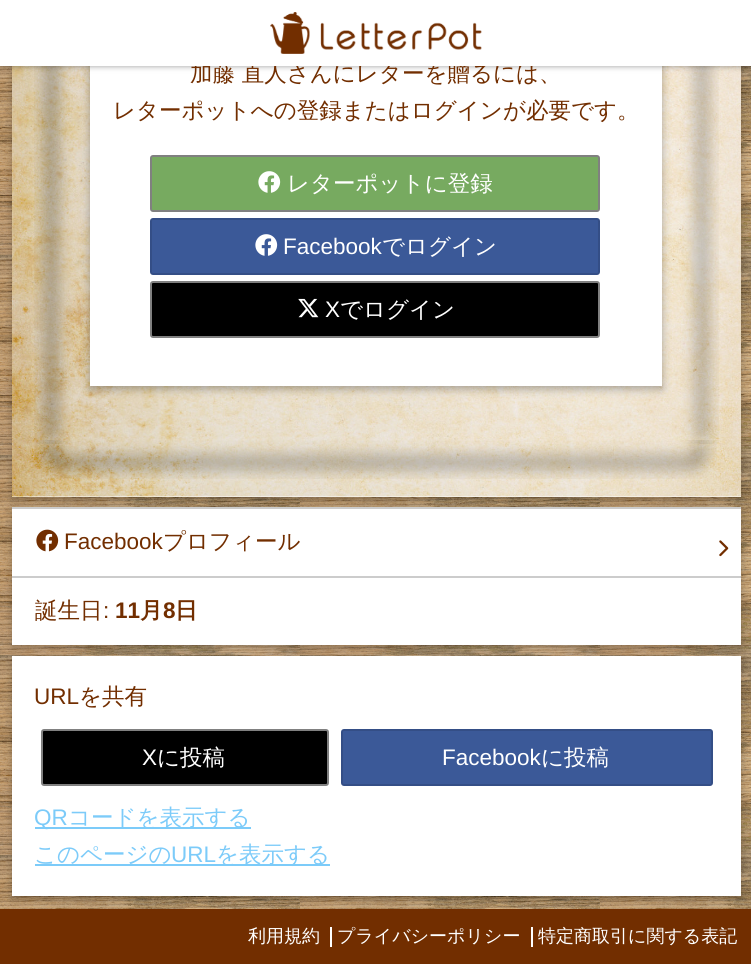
import math
import cairo



def rounded_rect(context, x, y, w, h, r):
    context.new_sub_path()
    for i, (u, v) in enumerate([(x + w - r, y + h - r), (x + r, y + h - r), (x + r, y + r), (x + w - r, y + r)]):
        context.arc(u, v, r, i * math.pi / 2, (i + 1) * math.pi / 2)
    context.close_path()


def draw_shadow(context, x, y, w, h, r, blur, alpha):
    context.push_group_with_content(cairo.Content.ALPHA)
    context.set_operator(cairo.Operator.SOURCE)
    for i in range(15, -16, -2):
        e = blur * i / 6
        if min(w, h) + 2 * e > 0:
            context.set_source_rgba(0, 0, 0, alpha * math.erfc((i - 1) / 8.5) / 2)
            rounded_rect(context, x - e, y - e, w + 2 * e, h + 2 * e, max(0, min(r + e + blur * .6, min(w, h) / 2 + e)))
            context.fill()
    context.mask(context.pop_group())


def draw_image(context, path, x, y, w, h):
    context.save()
    context.set_source_surface(cairo.ImageSurface.create_from_png(path), x, y)
    context.rectangle(x, y, w, h)
    context.fill()
    context.restore()


def draw(context):
    context.set_source_rgb(1, 1, 1)
    context.paint()
    draw_image(context, "images/1.png", 0, 66, 751, 843)
    context.set_source_rgb(0, 0, 0)
    draw_shadow(context, 12, -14, 729, 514, 0, 4.5, 0.3)
    context.set_source_rgb(1, 1, 1)
    context.rectangle(12, 496, 729, 1)
    context.fill()
    draw_image(context, "images/3.png", 12, 66, 729, 431)
    draw_image(context, "images/8.png", 35, 440, 682, 39)
    draw_image(context, "images/7.png", 34, 66, 685, 378)
    context.set_source_rgb(0, 0, 0)
    draw_shadow(context, 90, 36, 572, 353, 0, 4.5, 0.3)
    context.set_source_rgb(1, 1, 1)
    context.rectangle(90, 66, 572, 320)
    context.fill()
    context.set_source_rgb(0, 0, 0)
    draw_shadow(context, 0, 0, 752, 66, 0, 3, 0.4)
    context.set_source_rgb(119 / 255, 170 / 255, 96 / 255)
    rounded_rect(context, 151, 156, 448, 55, 2)
    context.fill_preserve()
    context.set_source_rgb(128 / 255, 128 / 255, 128 / 255)
    context.stroke()
    draw_image(context, "images/4.png", 258, 171, 23, 22)
    context.set_source_rgb(59 / 255, 89 / 255, 152 / 255)
    rounded_rect(context, 151, 219, 448, 55, 2)
    context.fill_preserve()
    context.set_source_rgb(52 / 255, 78 / 255, 134 / 255)
    context.stroke()
    draw_image(context, "images/5.png", 255, 234, 23, 22)
    context.set_source_rgb(0, 0, 0)
    rounded_rect(context, 151, 282, 448, 55, 2)
    context.fill_preserve()
    context.set_source_rgb(128 / 255, 128 / 255, 128 / 255)
    context.stroke()
    draw_image(context, "images/6.png", 298, 298, 21, 20)
    context.set_source_rgb(0, 0, 0)
    draw_shadow(context, 12, 510, 729, 138, 0, 4.5, 0.3)
    context.set_source_rgb(1, 1, 1)
    context.rectangle(12, 509, 729, 136)
    context.fill()
    context.set_source_rgb(204 / 255, 204 / 255, 204 / 255)
    context.rectangle(12, 507, 729, 2)
    context.fill()
    draw_image(context, "images/9.png", 36, 529, 23, 23)
    draw_image(context, "images/10.png", 719, 540, 10, 17)
    context.rectangle(12, 576, 729, 2)
    context.fill()
    context.set_source_rgb(114 / 255, 46 / 255, 0)
    context.rectangle(0, 909, 751, 55)
    context.fill()
    context.set_source_rgb(0, 0, 0)
    draw_shadow(context, 12, 659, 729, 240, 0, 4.5, 0.3)
    context.set_source_rgb(1, 1, 1)
    context.rectangle(12, 656, 729, 240)
    context.fill()
    context.set_source_rgb(0, 0, 0)
    rounded_rect(context, 42, 730, 286, 55, 2)
    context.fill_preserve()
    context.set_source_rgb(128 / 255, 128 / 255, 128 / 255)
    context.stroke()
    context.set_source_rgb(59 / 255, 89 / 255, 152 / 255)
    rounded_rect(context, 342, 730, 370, 55, 2)
    context.fill_preserve()
    context.set_source_rgb(52 / 255, 78 / 255, 134 / 255)
    context.stroke()
    context.set_source_rgb(124 / 255, 203 / 255, 249 / 255)
    context.rectangle(35, 827, 216, 2)
    context.fill()
    context.rectangle(35, 864, 295, 2)
    context.fill()
    context.set_source_rgb(1, 1, 1)
    context.rectangle(330, 927, 2, 20)
    context.fill()
    context.rectangle(531, 927, 2, 20)
    context.fill()
    context.select_font_face("WenQuanYi Zen Hei Medium")
    context.set_font_size(22.5)
    context.set_source_rgb(114 / 255, 46 / 255, 0)
    context.move_to(190, 81)
    context.show_text("加藤 直人さんにレターを贈るには、")
    context.set_source_rgb(1, 1, 1)
    context.rectangle(0, 0, 751, 66)
    context.fill()
    draw_image(context, "images/2.png", 270, 12, 212, 42)
    context.set_source_rgb(114 / 255, 46 / 255, 0)
    context.move_to(113, 118)
    context.show_text("レターポットへの登録またはログインが必要です。")
    context.set_source_rgb(1, 1, 1)
    context.move_to(287, 191)
    context.show_text("レターポットに登録")
    context.select_font_face("Liberation Sans")
    context.move_to(283, 254)
    context.show_text("Facebook")
    context.select_font_face("WenQuanYi Zen Hei Medium")
    context.move_to(382, 254)
    context.show_text("でログイン")
    context.select_font_face("Liberation Sans")
    context.move_to(325, 317)
    context.show_text("X")
    context.select_font_face("WenQuanYi Zen Hei Medium")
    context.move_to(340, 317)
    context.show_text("でログイン")
    context.select_font_face("Liberation Sans")
    context.set_source_rgb(114 / 255, 46 / 255, 0)
    context.move_to(64, 549)
    context.show_text("Facebook")
    context.select_font_face("WenQuanYi Zen Hei Medium")
    context.move_to(163, 549)
    context.show_text("プロフィール")
    context.move_to(35, 618)
    context.show_text("誕生日")
    context.select_font_face("Liberation Sans")
    context.move_to(103, 618)
    context.show_text(":")
    context.select_font_face("Liberation Sans", cairo.FontSlant.NORMAL, cairo.FontWeight.BOLD)
    context.move_to(115, 618)
    context.show_text("11")
    context.select_font_face("WenQuanYi Zen Hei", cairo.FontSlant.NORMAL, cairo.FontWeight.BOLD)
    context.move_to(140, 618)
    context.show_text("月")
    context.select_font_face("Liberation Sans", cairo.FontSlant.NORMAL, cairo.FontWeight.BOLD)
    context.move_to(163, 618)
    context.show_text("8")
    context.select_font_face("WenQuanYi Zen Hei", cairo.FontSlant.NORMAL, cairo.FontWeight.BOLD)
    context.move_to(175, 618)
    context.show_text("日")
    context.select_font_face("Liberation Sans")
    context.move_to(34, 704)
    context.show_text("URL")
    context.select_font_face("WenQuanYi Zen Hei Medium")
    context.move_to(79, 704)
    context.show_text("を共有")
    context.select_font_face("Liberation Sans")
    context.set_source_rgb(1, 1, 1)
    context.move_to(142, 765)
    context.show_text("X")
    context.select_font_face("WenQuanYi Zen Hei Medium")
    context.move_to(157, 765)
    context.show_text("に投稿")
    context.select_font_face("Liberation Sans")
    context.move_to(442, 765)
    context.show_text("Facebook")
    context.select_font_face("WenQuanYi Zen Hei Medium")
    context.move_to(541, 765)
    context.show_text("に投稿")
    context.select_font_face("Liberation Sans")
    context.set_source_rgb(124 / 255, 203 / 255, 249 / 255)
    context.move_to(34, 825)
    context.show_text("QR")
    context.select_font_face("WenQuanYi Zen Hei Medium")
    context.move_to(68, 825)
    context.show_text("コードを表示する")
    context.move_to(34, 862)
    context.show_text("このページの")
    context.select_font_face("Liberation Sans")
    context.move_to(171, 862)
    context.show_text("URL")
    context.select_font_face("WenQuanYi Zen Hei Medium")
    context.move_to(216, 862)
    context.show_text("を表示する")
    context.set_font_size(18)
    context.set_source_rgb(1, 1, 1)
    context.move_to(248, 942)
    context.show_text("利用規約")
    context.move_to(337, 942)
    context.show_text("プライバシーポリシー")
    context.move_to(538, 942)
    context.show_text("特定商取引に関する表記")


surface = cairo.ImageSurface(cairo.Format.RGB24, 751, 964)
context = cairo.Context(surface)
options = cairo.FontOptions()
options.set_hint_metrics(cairo.HintMetrics.OFF)
options.set_hint_style(cairo.HintStyle.NONE)
context.set_font_options(options)
context.set_miter_limit(4)
draw(context)
surface.write_to_png("out.png")
